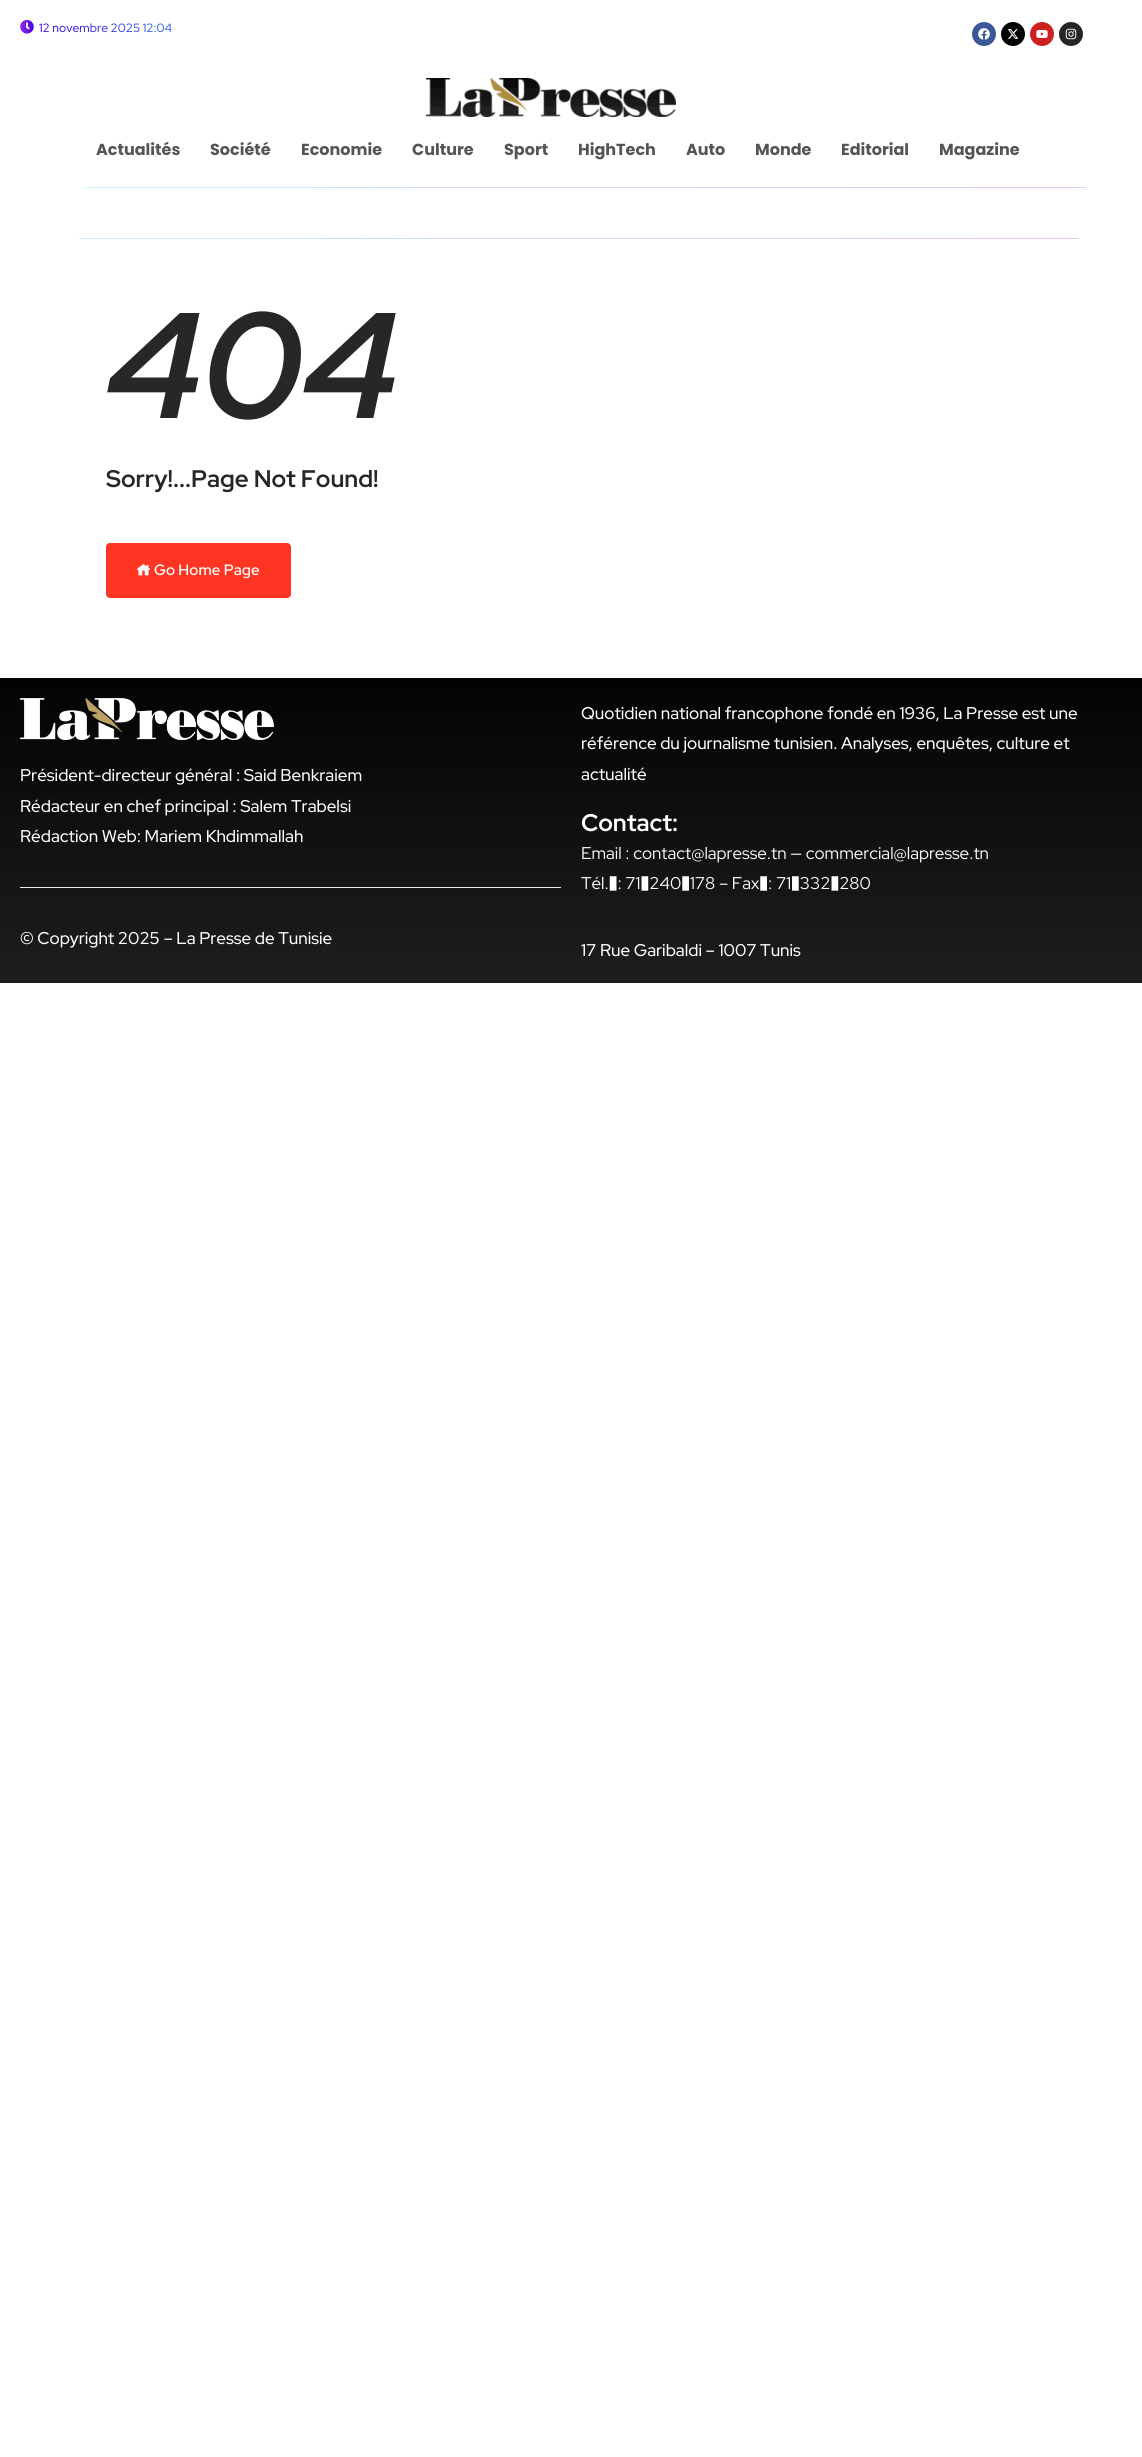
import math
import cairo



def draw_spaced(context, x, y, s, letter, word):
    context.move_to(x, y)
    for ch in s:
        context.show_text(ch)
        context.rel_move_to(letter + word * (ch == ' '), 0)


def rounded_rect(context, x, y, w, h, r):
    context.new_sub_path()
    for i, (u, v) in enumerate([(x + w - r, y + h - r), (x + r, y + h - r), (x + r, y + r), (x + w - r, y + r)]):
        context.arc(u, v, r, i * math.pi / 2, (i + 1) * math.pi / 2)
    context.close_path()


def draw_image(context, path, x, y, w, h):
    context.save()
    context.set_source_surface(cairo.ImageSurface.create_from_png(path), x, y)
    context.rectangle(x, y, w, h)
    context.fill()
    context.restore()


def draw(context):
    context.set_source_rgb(1, 1, 1)
    context.paint()
    draw_image(context, "images/1.png", 20, 20, 14, 14)
    context.set_source_rgb(59 / 255, 89 / 255, 152 / 255)
    context.arc(984, 34, 12, 0, 2 * math.pi)
    context.fill()
    draw_image(context, "images/2.png", 978, 28, 12, 12)
    context.set_source_rgb(0, 0, 0)
    context.arc(1013, 34, 12, 0, 2 * math.pi)
    context.fill()
    draw_image(context, "images/3.png", 1007, 29, 12, 10)
    context.set_source_rgb(205 / 255, 32 / 255, 31 / 255)
    context.arc(1042, 34, 12, 0, 2 * math.pi)
    context.fill()
    draw_image(context, "images/4.png", 1036, 30, 12, 8)
    context.set_source_rgb(38 / 255, 38 / 255, 38 / 255)
    context.arc(1071, 34, 12, 0, 2 * math.pi)
    context.fill()
    draw_image(context, "images/5.png", 1065, 28, 12, 12)
    draw_image(context, "images/6.png", 426, 78, 250, 39)
    draw_image(context, "images/7.png", 86, 187, 1000, 1)
    draw_image(context, "images/7.png", 79, 238, 1000, 1)
    context.set_source_rgb(1, 53 / 255, 36 / 255)
    rounded_rect(context, 106, 543, 185, 55, 4)
    context.fill()
    draw_image(context, "images/8.png", 137, 564, 13, 12)
    gradient = cairo.LinearGradient(571, 678, 571, 983)
    gradient.add_color_stop_rgba(0, 3 / 255, 3 / 255, 3 / 255, 1)
    gradient.add_color_stop_rgba(1, 31 / 255, 30 / 255, 30 / 255, 1)
    context.set_source(gradient)
    context.rectangle(0, 678, 1142, 305)
    context.fill()
    draw_image(context, "images/9.png", 20, 698, 254, 42)
    context.set_source_rgb(238 / 255, 233 / 255, 233 / 255)
    context.rectangle(20, 887, 541, 1)
    context.fill()
    context.select_font_face("Red Hat Display Medium")
    context.set_font_size(12)
    gradient = cairo.LinearGradient(20, 27, 172, 27)
    gradient.add_color_stop_rgba(0, 74 / 255, 0, 224 / 255, 1)
    gradient.add_color_stop_rgba(1, 52 / 255, 113 / 255, 235 / 255, 1)
    context.set_source(gradient)
    context.move_to(39, 32)
    context.show_text("12 novembre 2025 12:04")
    context.select_font_face("Poppins", cairo.FontSlant.NORMAL, cairo.FontWeight.BOLD)
    context.set_font_size(16)
    context.set_source_rgb(85 / 255, 85 / 255, 85 / 255)
    context.move_to(96, 155)
    context.show_text("Actualités")
    context.move_to(210, 155)
    context.show_text("Société")
    context.move_to(301, 155)
    context.show_text("Economie")
    context.move_to(412, 155)
    context.show_text("Culture")
    context.move_to(504, 155)
    context.show_text("Sport")
    context.move_to(578, 155)
    context.show_text("HighTech")
    context.move_to(686, 155)
    context.show_text("Auto")
    context.move_to(755, 155)
    context.show_text("Monde")
    context.move_to(841, 155)
    context.show_text("Editorial")
    context.move_to(939, 155)
    context.show_text("Magazine")
    context.select_font_face("Red Hat Display", cairo.FontSlant.ITALIC, cairo.FontWeight.BOLD)
    context.set_font_size(150)
    context.set_source_rgb(39 / 255, 39 / 255, 39 / 255)
    context.move_to(106, 418)
    context.show_text("404")
    context.select_font_face("Red Hat Display", cairo.FontSlant.NORMAL, cairo.FontWeight.BOLD)
    context.set_font_size(24)
    context.move_to(106, 487)
    context.show_text("Sorry!...Page Not Found!")
    context.select_font_face("Red Hat Display SemiBold")
    context.set_font_size(15)
    context.set_source_rgb(1, 1, 1)
    draw_spaced(context, 154, 575, "Go Home Page", 0.1, 0)
    context.select_font_face("Red Hat Display Medium")
    context.set_font_size(17)
    context.move_to(20, 781)
    context.show_text("Président-directeur général : Said Benkraiem")
    context.move_to(20, 812)
    context.show_text("Rédacteur en chef principal : Salem Trabelsi")
    context.move_to(20, 842)
    context.show_text("Rédaction Web: Mariem Khdimmallah")
    context.move_to(20, 944)
    context.show_text("© Copyright 2025 – La Presse de Tunisie")
    context.move_to(581, 719)
    context.show_text("Quotidien national francophone fondé en 1936, La Presse est une")
    context.move_to(581, 749)
    context.show_text("référence du journalisme tunisien. Analyses, enquêtes, culture et")
    context.move_to(581, 780)
    context.show_text("actualité")
    context.select_font_face("Red Hat Display", cairo.FontSlant.NORMAL, cairo.FontWeight.BOLD)
    context.set_font_size(24)
    context.move_to(581, 831)
    context.show_text("Contact:")
    context.select_font_face("Red Hat Display")
    context.set_font_size(17)
    context.move_to(581, 859)
    context.show_text("Email : contact@lapresse.tn — commercial@lapresse.tn")
    context.move_to(581, 889)
    context.show_text("Tél. : 71 240 178 – Fax : 71 332 280")
    context.select_font_face("Red Hat Display Medium")
    context.move_to(581, 956)
    context.show_text("17 Rue Garibaldi – 1007 Tunis")


surface = cairo.ImageSurface(cairo.Format.RGB24, 1142, 2457)
context = cairo.Context(surface)
options = cairo.FontOptions()
options.set_hint_metrics(cairo.HintMetrics.OFF)
options.set_hint_style(cairo.HintStyle.NONE)
context.set_font_options(options)
context.set_miter_limit(4)
draw(context)
surface.write_to_png("out.png")
